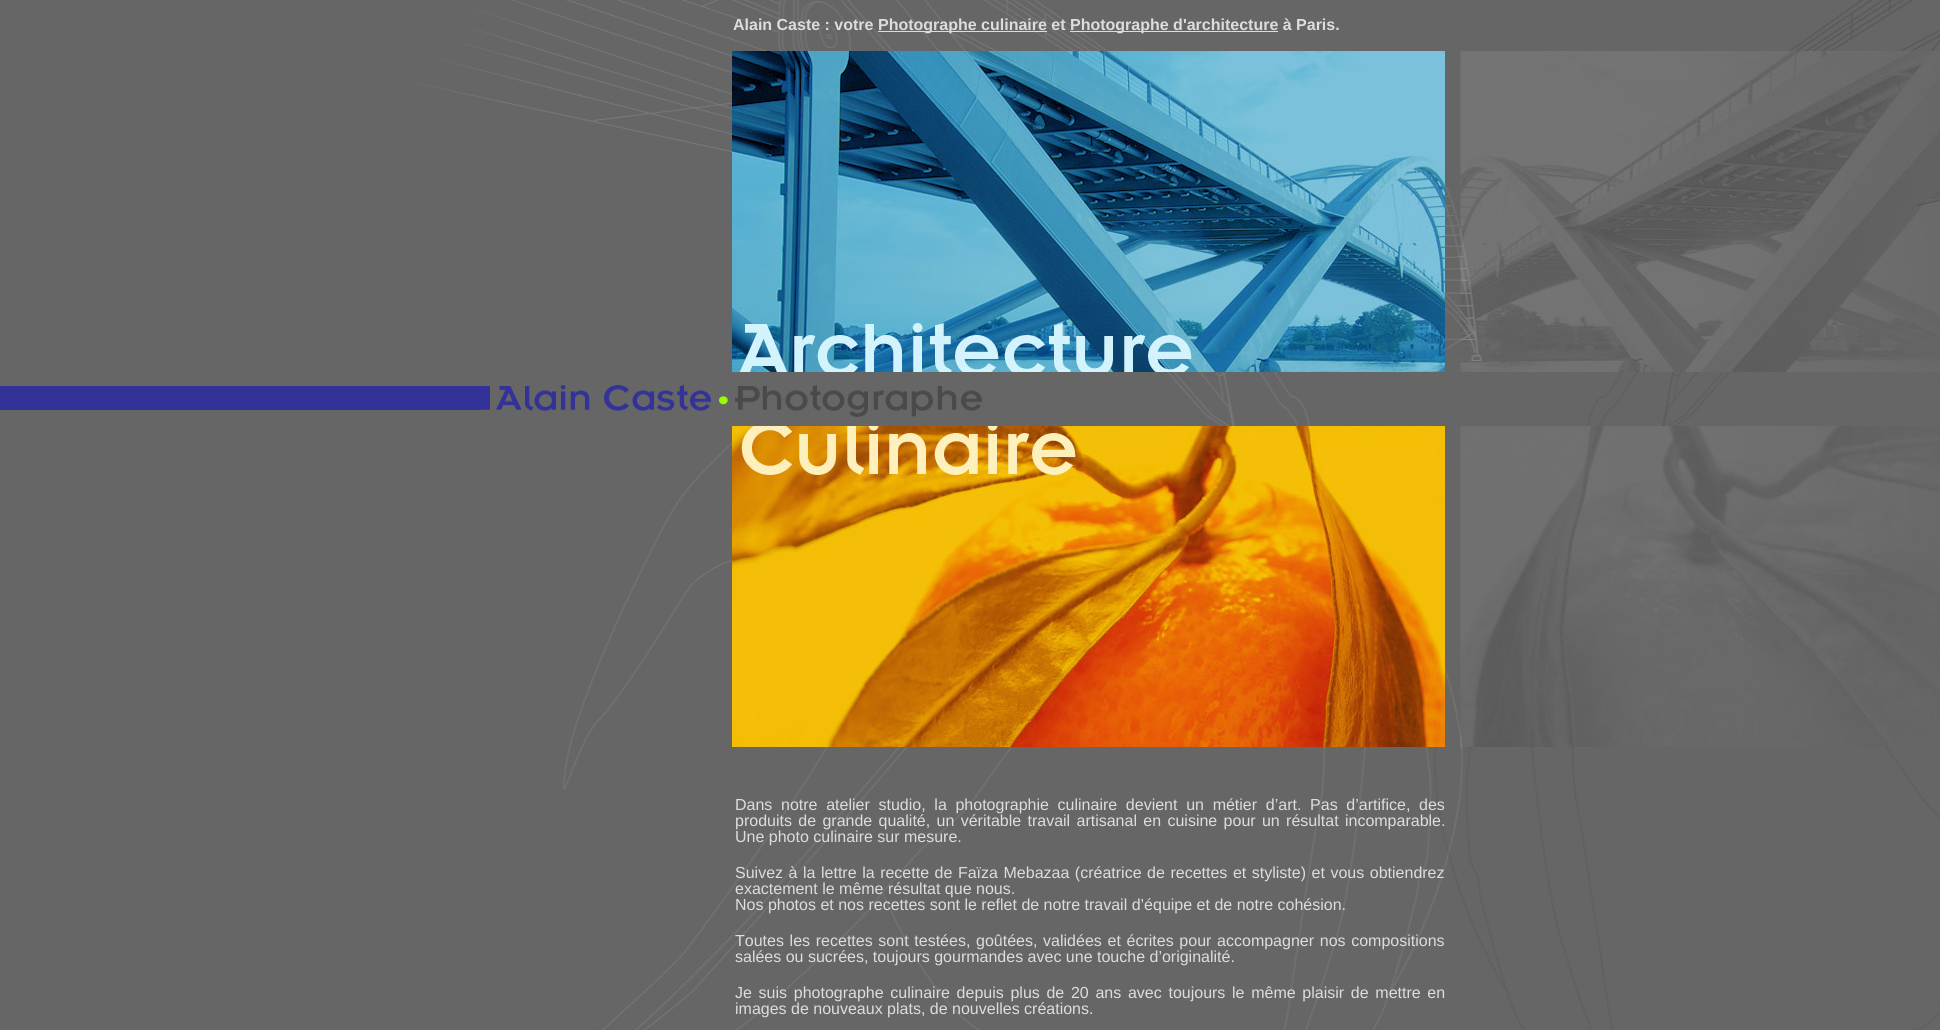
import math
import cairo



def draw_spaced(context, x, y, s, letter, word):
    context.move_to(x, y)
    for ch in s:
        context.show_text(ch)
        context.rel_move_to(letter + word * (ch == ' '), 0)


def draw_image(context, path, x, y, w, h):
    context.save()
    context.set_source_surface(cairo.ImageSurface.create_from_png(path), x, y)
    context.rectangle(x, y, w, h)
    context.fill()
    context.restore()


def draw(context):
    context.set_source_rgb(1, 1, 1)
    context.paint()
    draw_image(context, "images/1.png", 0, 0, 1940, 1030)
    context.set_source_rgb(50 / 255, 50 / 255, 152 / 255)
    context.rectangle(0, 386, 480, 24)
    context.fill()
    context.set_source_rgb(221 / 255, 221 / 255, 221 / 255)
    context.rectangle(878, 31, 169, 1)
    context.fill()
    context.rectangle(1070, 31, 208, 1)
    context.fill()
    draw_image(context, "images/2.png", 732, 51, 713, 321)
    draw_image(context, "images/3.png", 480, 385, 502, 32)
    draw_image(context, "images/4.png", 732, 426, 713, 321)
    context.select_font_face("Liberation Sans", cairo.FontSlant.NORMAL, cairo.FontWeight.BOLD)
    context.set_font_size(16)
    context.move_to(733, 30)
    context.show_text("Alain Caste : votre")
    context.move_to(878, 30)
    context.show_text("Photographe culinaire et")
    context.move_to(1070, 30)
    context.show_text("Photographe d'architecture à Paris.")
    context.select_font_face("Liberation Sans")
    draw_spaced(context, 735, 810, "Dans notre atelier studio, la photographie culinaire devient un métier d’art. Pas d’artifice, des", 0, 4.25)
    draw_spaced(context, 735, 826, "produits de grande qualité, un véritable travail artisanal en cuisine pour un résultat incomparable.", 0, 1.9)
    context.move_to(735, 842)
    context.show_text("Une photo culinaire sur mesure.")
    draw_spaced(context, 735, 878, "Suivez à la lettre la recette de Faïza Mebazaa (créatrice de recettes et styliste) et vous obtiendrez", 0, 1.1)
    context.move_to(735, 894)
    context.show_text("exactement le même résultat que nous.")
    context.move_to(735, 910)
    context.show_text("Nos photos et nos recettes sont le reflet de notre travail d’équipe et de notre cohésion.")
    draw_spaced(context, 735, 946, "Toutes les recettes sont testées, goûtées, validées et écrites pour accompagner nos compositions", 0, 1.25)
    context.move_to(735, 962)
    context.show_text("salées ou sucrées, toujours gourmandes avec une touche d’originalité.")
    draw_spaced(context, 735, 998, "Je suis photographe culinaire depuis plus de 20 ans avec toujours le même plaisir de mettre en", 0, 2.25)
    context.move_to(735, 1014)
    context.show_text("images de nouveaux plats, de nouvelles créations.")


surface = cairo.ImageSurface(cairo.Format.RGB24, 1940, 1030)
context = cairo.Context(surface)
options = cairo.FontOptions()
options.set_hint_metrics(cairo.HintMetrics.OFF)
options.set_hint_style(cairo.HintStyle.NONE)
context.set_font_options(options)
context.set_miter_limit(4)
draw(context)
surface.write_to_png("out.png")
